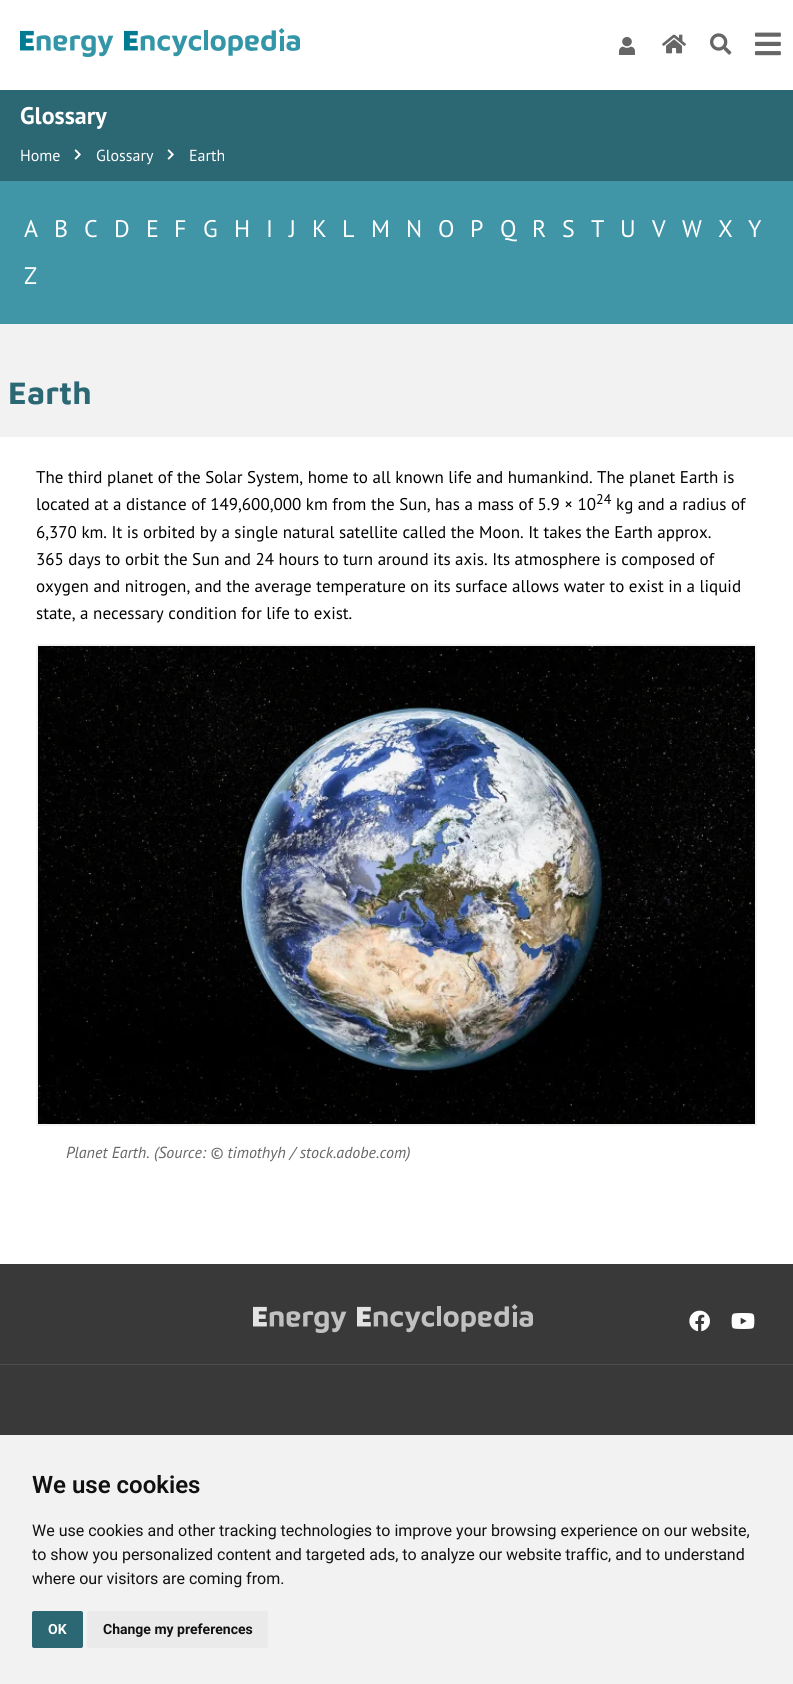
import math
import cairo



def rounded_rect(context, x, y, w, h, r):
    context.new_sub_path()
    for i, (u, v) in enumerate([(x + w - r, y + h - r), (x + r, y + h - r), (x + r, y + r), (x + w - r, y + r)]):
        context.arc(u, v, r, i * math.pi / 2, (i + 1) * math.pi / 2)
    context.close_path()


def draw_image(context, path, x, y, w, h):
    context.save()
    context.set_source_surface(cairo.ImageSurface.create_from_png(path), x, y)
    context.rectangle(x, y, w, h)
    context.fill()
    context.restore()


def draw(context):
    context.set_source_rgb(242 / 255, 242 / 255, 242 / 255)
    context.paint()
    context.set_source_rgb(1, 1, 1)
    context.rectangle(0, 0, 793, 90)
    context.fill()
    draw_image(context, "images/1.png", 20, 28, 280, 29)
    draw_image(context, "images/2.png", 619, 37, 16, 18)
    draw_image(context, "images/3.png", 662, 34, 24, 20)
    draw_image(context, "images/4.png", 710, 33, 22, 22)
    draw_image(context, "images/5.png", 755, 32, 26, 24)
    context.set_source_rgb(44 / 255, 103 / 255, 116 / 255)
    context.rectangle(0, 90, 793, 91)
    context.fill()
    draw_image(context, "images/6.png", 74, 149, 7, 11)
    draw_image(context, "images/6.png", 167, 149, 7, 11)
    context.set_source_rgb(64 / 255, 149 / 255, 167 / 255)
    context.rectangle(0, 181, 793, 143)
    context.fill()
    context.set_source_rgb(1, 1, 1)
    context.rectangle(0, 437, 793, 827)
    context.fill()
    context.rectangle(37, 645, 719, 480)
    context.set_source_rgb(244 / 255, 243 / 255, 242 / 255)
    context.stroke()
    draw_image(context, "images/7.png", 38, 646, 717, 478)
    context.set_source_rgb(57 / 255, 57 / 255, 57 / 255)
    context.rectangle(0, 1264, 793, 100)
    context.fill()
    draw_image(context, "images/8.png", 253, 1304, 280, 29)
    draw_image(context, "images/9.png", 689, 1310, 21, 22)
    draw_image(context, "images/10.png", 731, 1313, 24, 16)
    context.rectangle(0, 1365, 793, 70)
    context.fill()
    context.set_source_rgb(77 / 255, 77 / 255, 77 / 255)
    context.rectangle(0, 1364, 793, 1)
    context.fill()
    context.set_source_rgb(44 / 255, 103 / 255, 116 / 255)
    rounded_rect(context, 32, 1611, 51, 37, 2)
    context.fill()
    context.set_source_rgb(234 / 255, 234 / 255, 234 / 255)
    rounded_rect(context, 87, 1611, 181, 37, 2)
    context.fill()
    context.select_font_face("PT Sans", cairo.FontSlant.NORMAL, cairo.FontWeight.BOLD)
    context.set_font_size(24)
    context.set_source_rgb(1, 1, 1)
    context.move_to(20, 124)
    context.show_text("Glossary")
    context.select_font_face("PT Sans")
    context.set_font_size(16)
    context.move_to(20, 161)
    context.show_text("Home")
    context.move_to(96, 161)
    context.show_text("Glossary")
    context.move_to(189, 161)
    context.show_text("Earth")
    context.set_font_size(24)
    context.move_to(24, 237)
    context.show_text("A")
    context.move_to(54, 237)
    context.show_text("B")
    context.move_to(84, 237)
    context.show_text("C")
    context.move_to(114, 237)
    context.show_text("D")
    context.move_to(146, 237)
    context.show_text("E")
    context.move_to(174, 237)
    context.show_text("F")
    context.move_to(203, 237)
    context.show_text("G")
    context.move_to(234, 237)
    context.show_text("H")
    context.move_to(266, 237)
    context.show_text("I")
    context.move_to(289, 237)
    context.show_text("J")
    context.move_to(312, 237)
    context.show_text("K")
    context.move_to(342, 237)
    context.show_text("L")
    context.move_to(371, 237)
    context.show_text("M")
    context.move_to(406, 237)
    context.show_text("N")
    context.move_to(438, 237)
    context.show_text("O")
    context.move_to(470, 237)
    context.show_text("P")
    context.move_to(500, 237)
    context.show_text("Q")
    context.move_to(532, 237)
    context.show_text("R")
    context.move_to(562, 237)
    context.show_text("S")
    context.move_to(591, 237)
    context.show_text("T")
    context.move_to(620, 237)
    context.show_text("U")
    context.move_to(652, 237)
    context.show_text("V")
    context.move_to(682, 237)
    context.show_text("W")
    context.move_to(718, 237)
    context.show_text("X")
    context.move_to(748, 237)
    context.show_text("Y")
    context.move_to(24, 284)
    context.show_text("Z")
    context.select_font_face("Maven Pro", cairo.FontSlant.NORMAL, cairo.FontWeight.BOLD)
    context.set_font_size(32)
    context.set_source_rgb(44 / 255, 103 / 255, 116 / 255)
    context.move_to(8, 404)
    context.show_text("Earth")
    context.select_font_face("PT Sans")
    context.set_font_size(17)
    context.set_source_rgb(0, 0, 0)
    context.move_to(36, 483)
    context.show_text("The third planet of the Solar System, home to all known life and humankind. The planet Earth is")
    context.move_to(36, 510)
    context.show_text("located at a distance of 149,600,000 km from the Sun, has a mass of 5.9 × 10")
    context.set_font_size(14)
    context.move_to(596, 504)
    context.show_text("24")
    context.set_font_size(17)
    context.move_to(616, 510)
    context.show_text("kg and a radius of")
    context.move_to(36, 538)
    context.show_text("6,370 km. It is orbited by a single natural satellite called the Moon. It takes the Earth approx.")
    context.move_to(36, 565)
    context.show_text("365 days to orbit the Sun and 24 hours to turn around its axis. Its atmosphere is composed of")
    context.move_to(36, 592)
    context.show_text("oxygen and nitrogen, and the average temperature on its surface allows water to exist in a liquid")
    context.move_to(36, 619)
    context.show_text("state, a necessary condition for life to exist.")
    context.select_font_face("PT Sans", cairo.FontSlant.ITALIC)
    context.set_font_size(16)
    context.set_source_rgb(102 / 255, 102 / 255, 102 / 255)
    context.move_to(66, 1158)
    context.show_text("Planet Earth. (Source: © timothyh / stock.adobe.com)")
    context.select_font_face("Roboto SemiBold")
    context.set_font_size(24)
    context.set_source_rgb(17 / 255, 17 / 255, 17 / 255)
    context.move_to(32, 1493)
    context.show_text("We use cookies")
    context.select_font_face("Roboto")
    context.set_font_size(16)
    context.move_to(32, 1536)
    context.show_text("We use cookies and other tracking technologies to improve your browsing experience on our website,")
    context.move_to(32, 1560)
    context.show_text("to show you personalized content and targeted ads, to analyze our website traffic, and to understand")
    context.move_to(32, 1584)
    context.show_text("where our visitors are coming from.")
    context.select_font_face("Roboto", cairo.FontSlant.NORMAL, cairo.FontWeight.BOLD)
    context.set_font_size(14)
    context.set_source_rgb(1, 1, 1)
    context.move_to(48, 1634)
    context.show_text("OK")
    context.set_source_rgb(17 / 255, 17 / 255, 17 / 255)
    context.move_to(103, 1634)
    context.show_text("Change my preferences")


surface = cairo.ImageSurface(cairo.Format.RGB24, 793, 1684)
context = cairo.Context(surface)
options = cairo.FontOptions()
options.set_hint_metrics(cairo.HintMetrics.OFF)
options.set_hint_style(cairo.HintStyle.NONE)
context.set_font_options(options)
context.set_miter_limit(4)
draw(context)
surface.write_to_png("out.png")
